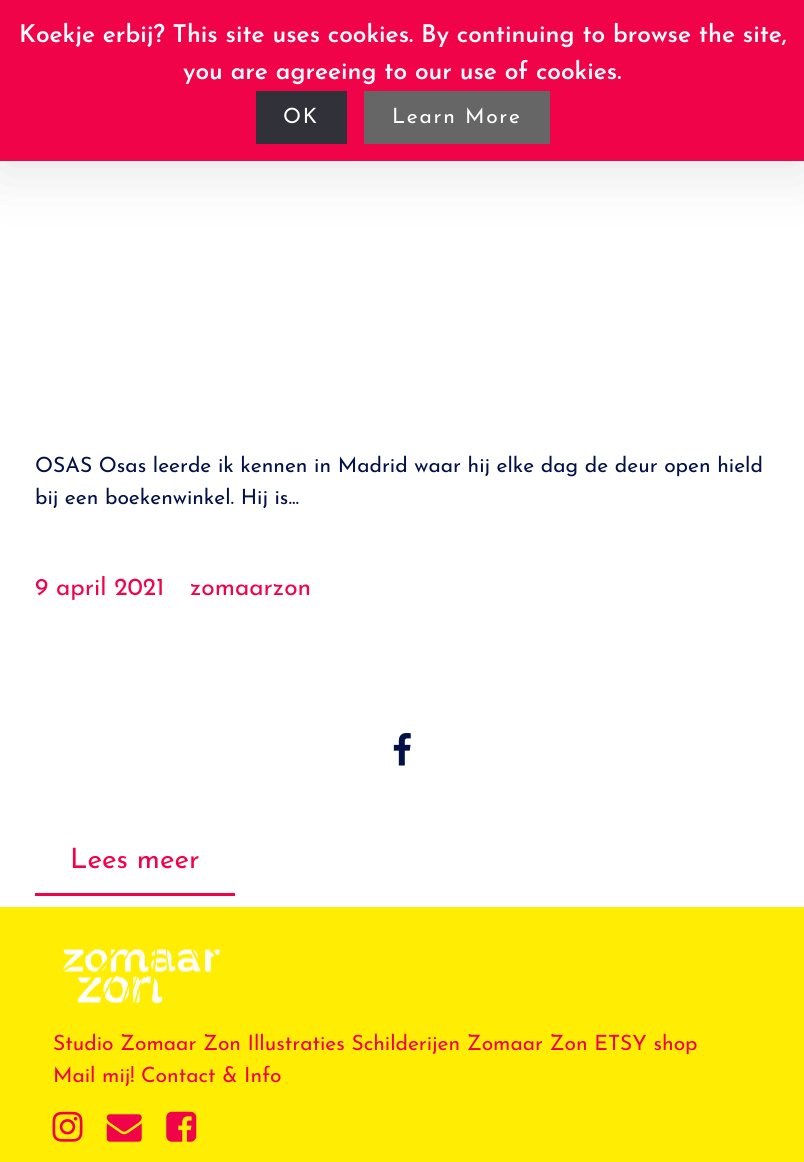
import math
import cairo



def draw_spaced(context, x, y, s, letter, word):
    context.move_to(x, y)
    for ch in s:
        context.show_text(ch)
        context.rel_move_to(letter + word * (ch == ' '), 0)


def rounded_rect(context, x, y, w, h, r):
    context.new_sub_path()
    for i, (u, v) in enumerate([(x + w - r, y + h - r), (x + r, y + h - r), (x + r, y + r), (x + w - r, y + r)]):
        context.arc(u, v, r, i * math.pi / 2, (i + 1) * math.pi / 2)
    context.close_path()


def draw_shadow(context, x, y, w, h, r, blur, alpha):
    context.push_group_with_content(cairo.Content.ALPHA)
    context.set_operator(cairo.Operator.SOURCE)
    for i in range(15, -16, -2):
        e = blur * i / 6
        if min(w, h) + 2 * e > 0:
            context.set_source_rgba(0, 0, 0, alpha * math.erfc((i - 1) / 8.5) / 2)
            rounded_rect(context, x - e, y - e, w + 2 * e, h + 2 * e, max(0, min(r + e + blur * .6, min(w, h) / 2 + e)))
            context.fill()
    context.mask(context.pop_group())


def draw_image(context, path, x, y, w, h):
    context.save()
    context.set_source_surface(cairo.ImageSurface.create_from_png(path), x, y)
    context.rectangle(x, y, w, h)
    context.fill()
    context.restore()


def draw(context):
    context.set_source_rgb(1, 1, 1)
    context.paint()
    context.set_source_rgb(0, 0, 0)
    draw_shadow(context, 0, 12, 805, 161, 0, 29, 0.1)
    context.set_source_rgb(241 / 255, 3 / 255, 74 / 255)
    context.rectangle(0, 0, 804, 161)
    context.fill()
    context.set_source_rgb(49 / 255, 49 / 255, 57 / 255)
    context.rectangle(256, 91, 91, 53)
    context.fill()
    context.set_source_rgb(102 / 255, 102 / 255, 102 / 255)
    context.rectangle(364, 91, 186, 53)
    context.fill()
    draw_image(context, "images/1.png", 393, 733, 18, 33)
    context.set_source_rgb(241 / 255, 3 / 255, 74 / 255)
    context.rectangle(35, 893, 200, 3)
    context.fill()
    context.set_source_rgb(1, 238 / 255, 3 / 255)
    context.rectangle(0, 907, 804, 255)
    context.fill()
    draw_image(context, "images/2.png", 63, 949, 157, 55)
    draw_image(context, "images/3.png", 52, 1111, 31, 31)
    draw_image(context, "images/4.png", 106, 1114, 36, 28)
    draw_image(context, "images/5.png", 166, 1111, 31, 31)
    context.select_font_face("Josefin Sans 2 Thin")
    context.set_font_size(24.5)
    context.set_source_rgb(1, 1, 1)
    context.move_to(19, 42)
    context.show_text("Koekje erbij? This site uses cookies. By continuing to browse the site,")
    context.move_to(183, 79)
    context.show_text("you are agreeing to our use of cookies.")
    context.select_font_face("Josefin Sans Thin")
    context.set_font_size(21)
    draw_spaced(context, 283, 123, "OK", 1.75, 0)
    draw_spaced(context, 392, 123, "Learn More", 1.75, 0)
    context.set_source_rgb(2 / 255, 17 / 255, 71 / 255)
    context.move_to(35, 472)
    context.show_text("OSAS Osas leerde ik kennen in Madrid waar hij elke dag de deur open hield")
    context.move_to(35, 504)
    context.show_text("bij een boekenwinkel. Hij is...")
    context.set_font_size(24.5)
    context.set_source_rgb(241 / 255, 3 / 255, 74 / 255)
    context.move_to(35, 595)
    context.show_text("9 april 2021")
    context.move_to(190, 595)
    context.show_text("zomaarzon")
    context.set_font_size(28)
    context.move_to(70, 868)
    context.show_text("Lees meer")
    context.set_font_size(21)
    context.move_to(53, 1050)
    context.show_text("Studio Zomaar Zon Illustraties Schilderijen Zomaar Zon ETSY shop")
    context.move_to(53, 1082)
    context.show_text("Mail mij! Contact & Info")


surface = cairo.ImageSurface(cairo.Format.RGB24, 804, 1162)
context = cairo.Context(surface)
options = cairo.FontOptions()
options.set_hint_metrics(cairo.HintMetrics.OFF)
options.set_hint_style(cairo.HintStyle.NONE)
context.set_font_options(options)
context.set_miter_limit(4)
draw(context)
surface.write_to_png("out.png")
